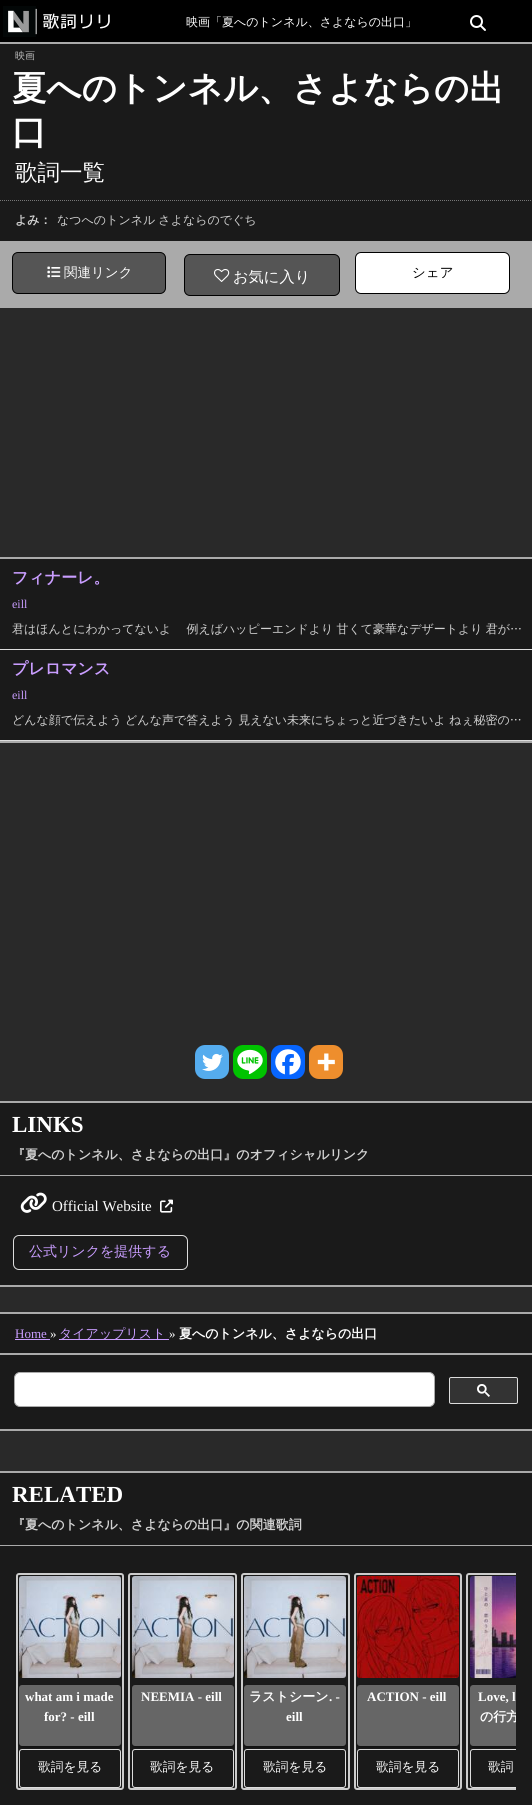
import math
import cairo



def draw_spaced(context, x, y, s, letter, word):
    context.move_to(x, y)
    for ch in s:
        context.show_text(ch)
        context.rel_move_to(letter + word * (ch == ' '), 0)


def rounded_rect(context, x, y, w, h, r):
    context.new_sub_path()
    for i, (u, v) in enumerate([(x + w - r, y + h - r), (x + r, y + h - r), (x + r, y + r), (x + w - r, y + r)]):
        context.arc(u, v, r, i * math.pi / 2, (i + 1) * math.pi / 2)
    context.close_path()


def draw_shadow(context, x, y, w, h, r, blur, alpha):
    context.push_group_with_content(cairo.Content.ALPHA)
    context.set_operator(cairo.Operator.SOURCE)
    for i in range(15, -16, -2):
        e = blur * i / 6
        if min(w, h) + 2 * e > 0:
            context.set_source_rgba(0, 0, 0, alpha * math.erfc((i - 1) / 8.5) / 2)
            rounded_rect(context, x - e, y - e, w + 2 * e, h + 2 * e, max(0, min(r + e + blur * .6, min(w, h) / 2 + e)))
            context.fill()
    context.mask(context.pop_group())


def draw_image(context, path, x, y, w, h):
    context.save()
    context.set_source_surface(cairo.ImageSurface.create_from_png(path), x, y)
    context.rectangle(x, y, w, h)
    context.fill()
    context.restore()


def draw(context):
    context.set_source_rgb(41 / 255, 41 / 255, 41 / 255)
    context.paint()
    context.set_source_rgb(0, 0, 0)
    context.rectangle(0, 0, 532, 42)
    context.fill()
    context.set_source_rgb(170 / 255, 170 / 255, 170 / 255)
    context.rectangle(0, 42, 532, 2)
    context.fill()
    draw_image(context, "images/1.png", 3, 6, 107, 31)
    draw_image(context, "images/2.png", 470, 15, 16, 16)
    context.set_source_rgb(26 / 255, 26 / 255, 26 / 255)
    context.rectangle(0, 44, 532, 197)
    context.fill()
    context.set_source_rgb(170 / 255, 170 / 255, 170 / 255)
    context.rectangle(0, 241, 532, 67)
    context.fill()
    context.new_path()
    context.move_to(0, 200.5)
    context.line_to(532, 200.5)
    context.set_source_rgb(119 / 255, 119 / 255, 119 / 255)
    context.set_line_width(1)
    context.set_dash([1, 1])
    context.stroke()
    context.set_source_rgb(85 / 255, 85 / 255, 85 / 255)
    rounded_rect(context, 12.5, 252.5, 153, 41, 5.5)
    context.fill_preserve()
    context.set_source_rgb(0, 0, 0)
    context.set_dash([])
    context.stroke()
    draw_image(context, "images/3.png", 47, 266, 14, 12)
    context.set_source_rgb(85 / 255, 85 / 255, 85 / 255)
    rounded_rect(context, 184.5, 254.5, 155, 41, 5.5)
    context.fill_preserve()
    context.set_source_rgb(0, 0, 0)
    context.stroke()
    draw_image(context, "images/4.png", 214, 269, 16, 13)
    context.set_source_rgb(1, 1, 1)
    rounded_rect(context, 355.5, 252.5, 154, 41, 5.5)
    context.fill_preserve()
    context.set_source_rgb(0, 0, 0)
    context.stroke()
    context.set_source_rgb(26 / 255, 26 / 255, 26 / 255)
    context.rectangle(0, 559, 532, 181)
    context.fill()
    context.set_source_rgb(170 / 255, 170 / 255, 170 / 255)
    context.rectangle(0, 557, 532, 2)
    context.fill()
    context.rectangle(0, 741, 532, 2)
    context.fill()
    context.set_source_rgb(221 / 255, 221 / 255, 221 / 255)
    context.rectangle(0, 649, 532, 1)
    context.fill()
    context.rectangle(0, 740, 532, 1)
    context.fill()
    context.set_source_rgb(85 / 255, 172 / 255, 238 / 255)
    rounded_rect(context, 195, 1045, 34, 34, 10)
    context.fill()
    draw_image(context, "images/5.png", 202, 1053, 21, 18)
    context.set_source_rgb(0, 195 / 255, 0)
    rounded_rect(context, 233, 1045, 34, 34, 10)
    context.fill()
    draw_image(context, "images/6.png", 237, 1049, 26, 26)
    context.set_source_rgb(7 / 255, 101 / 255, 254 / 255)
    rounded_rect(context, 271, 1045, 34, 34, 10)
    context.fill()
    draw_image(context, "images/7.png", 275, 1049, 26, 26)
    context.set_source_rgb(238 / 255, 142 / 255, 45 / 255)
    rounded_rect(context, 309, 1045, 34, 34, 10)
    context.fill()
    draw_image(context, "images/8.png", 317, 1053, 18, 18)
    context.set_source_rgb(26 / 255, 26 / 255, 26 / 255)
    context.rectangle(0, 1103, 532, 182)
    context.fill()
    context.set_source_rgb(170 / 255, 170 / 255, 170 / 255)
    context.rectangle(0, 1101, 532, 2)
    context.fill()
    context.rectangle(0, 1285, 532, 2)
    context.fill()
    context.rectangle(0, 1175, 532, 1)
    context.fill()
    draw_image(context, "images/9.png", 20, 1192, 27, 21)
    draw_image(context, "images/10.png", 160, 1199, 13, 14)
    rounded_rect(context, 13.5, 1235.5, 174, 34, 5.5)
    context.set_source_rgb(221 / 255, 221 / 255, 221 / 255)
    context.stroke()
    context.set_source_rgb(26 / 255, 26 / 255, 26 / 255)
    context.rectangle(0, 1314, 532, 115)
    context.fill()
    context.set_source_rgb(170 / 255, 170 / 255, 170 / 255)
    context.rectangle(0, 1312, 532, 2)
    context.fill()
    context.rectangle(0, 1429, 532, 2)
    context.fill()
    context.rectangle(0, 1353, 532, 2)
    context.fill()
    context.set_source_rgb(201 / 255, 157 / 255, 1)
    context.rectangle(15, 1339, 35, 1)
    context.fill()
    context.rectangle(59, 1339, 110, 1)
    context.fill()
    context.set_source_rgb(1, 1, 1)
    rounded_rect(context, 14.5, 1372.5, 420, 34, 5.5)
    context.fill_preserve()
    context.set_source_rgb(170 / 255, 170 / 255, 170 / 255)
    context.stroke()
    context.set_source_rgb(51 / 255, 51 / 255, 51 / 255)
    rounded_rect(context, 449.5, 1377.5, 68, 26, 1.5)
    context.fill_preserve()
    context.set_source_rgb(221 / 255, 221 / 255, 221 / 255)
    context.stroke()
    draw_image(context, "images/11.png", 477, 1384, 13, 13)
    context.set_source_rgb(26 / 255, 26 / 255, 26 / 255)
    context.rectangle(0, 1473, 532, 332)
    context.fill()
    context.set_source_rgb(170 / 255, 170 / 255, 170 / 255)
    context.rectangle(0, 1471, 532, 2)
    context.fill()
    context.rectangle(0, 1545, 532, 1)
    context.fill()
    rounded_rect(context, 17, 1574, 106, 215, 2)
    context.set_source_rgb(204 / 255, 204 / 255, 204 / 255)
    context.set_line_width(2)
    context.stroke()
    draw_image(context, "images/12.png", 19, 1576, 102, 102)
    rounded_rect(context, 19.5, 1749.5, 101, 38, 2.5)
    context.set_source_rgb(221 / 255, 221 / 255, 221 / 255)
    context.set_line_width(1)
    context.stroke()
    context.set_source_rgb(0, 0, 0)
    draw_shadow(context, 19, 1686, 102, 61, 3, 1, 0.4)
    context.set_source_rgb(102 / 255, 102 / 255, 102 / 255)
    rounded_rect(context, 19, 1685, 102, 61, 3)
    context.fill()
    rounded_rect(context, 129, 1574, 107, 215, 2)
    context.set_source_rgb(204 / 255, 204 / 255, 204 / 255)
    context.set_line_width(2)
    context.stroke()
    draw_image(context, "images/13.png", 132, 1576, 102, 102)
    rounded_rect(context, 132.5, 1749.5, 101, 38, 2.5)
    context.set_source_rgb(221 / 255, 221 / 255, 221 / 255)
    context.set_line_width(1)
    context.stroke()
    context.set_source_rgb(0, 0, 0)
    draw_shadow(context, 132, 1686, 102, 61, 3, 1, 0.4)
    context.set_source_rgb(102 / 255, 102 / 255, 102 / 255)
    rounded_rect(context, 132, 1685, 102, 61, 3)
    context.fill()
    rounded_rect(context, 242, 1574, 107, 215, 2)
    context.set_source_rgb(204 / 255, 204 / 255, 204 / 255)
    context.set_line_width(2)
    context.stroke()
    draw_image(context, "images/14.png", 244, 1576, 102, 102)
    rounded_rect(context, 244.5, 1749.5, 101, 38, 2.5)
    context.set_source_rgb(221 / 255, 221 / 255, 221 / 255)
    context.set_line_width(1)
    context.stroke()
    context.set_source_rgb(0, 0, 0)
    draw_shadow(context, 244, 1686, 102, 61, 3, 1, 0.4)
    context.set_source_rgb(102 / 255, 102 / 255, 102 / 255)
    rounded_rect(context, 244, 1685, 102, 61, 3)
    context.fill()
    rounded_rect(context, 355, 1574, 106, 215, 2)
    context.set_source_rgb(204 / 255, 204 / 255, 204 / 255)
    context.set_line_width(2)
    context.stroke()
    draw_image(context, "images/15.png", 357, 1576, 102, 102)
    rounded_rect(context, 357.5, 1749.5, 101, 38, 2.5)
    context.set_source_rgb(221 / 255, 221 / 255, 221 / 255)
    context.set_line_width(1)
    context.stroke()
    context.set_source_rgb(0, 0, 0)
    draw_shadow(context, 357, 1686, 102, 61, 3, 1, 0.4)
    context.set_source_rgb(102 / 255, 102 / 255, 102 / 255)
    rounded_rect(context, 357, 1685, 102, 61, 3)
    context.fill()
    context.save()
    context.rectangle(16, 1571, 500, 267)
    context.clip()
    rounded_rect(context, 467, 1574, 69, 215, 2)
    context.set_source_rgb(204 / 255, 204 / 255, 204 / 255)
    context.set_line_width(2)
    context.stroke()
    context.restore()
    draw_image(context, "images/16.png", 470, 1576, 46, 102)
    context.save()
    context.rectangle(470, 1576, 46, 212)
    context.clip()
    rounded_rect(context, 470.5, 1749.5, 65, 38, 2.5)
    context.set_source_rgb(221 / 255, 221 / 255, 221 / 255)
    context.stroke()
    context.restore()
    context.save()
    context.rectangle(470, 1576, 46, 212)
    context.clip()
    context.set_source_rgb(0, 0, 0)
    draw_shadow(context, 470, 1686, 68, 61, 3, 1, 0.4)
    context.restore()
    context.new_path()
    context.move_to(473, 1685)
    context.line_to(516, 1685)
    context.line_to(516, 1746)
    context.line_to(473, 1746)
    context.curve_to(471.5, 1746, 470, 1744.5, 470, 1743)
    context.line_to(470, 1688)
    context.curve_to(470, 1686.5, 471.5, 1685, 473, 1685)
    context.close_path()
    context.fill()
    context.select_font_face("WenQuanYi Zen Hei Medium")
    context.set_font_size(12)
    context.set_source_rgb(1, 1, 1)
    context.move_to(186, 26)
    context.show_text("映画「夏へのトンネル、さよならの出口」")
    context.set_font_size(10)
    context.set_source_rgb(186 / 255, 186 / 255, 186 / 255)
    context.move_to(15, 59)
    context.show_text("映画")
    context.select_font_face("WenQuanYi Zen Hei", cairo.FontSlant.NORMAL, cairo.FontWeight.BOLD)
    context.set_font_size(34.5)
    context.set_source_rgb(1, 1, 1)
    context.move_to(12, 100)
    context.show_text("夏へのトンネル、さよならの出")
    context.move_to(12, 144)
    context.show_text("口")
    context.select_font_face("WenQuanYi Zen Hei Medium")
    context.set_font_size(22.5)
    context.move_to(15, 180)
    context.show_text("歌詞一覧")
    context.select_font_face("WenQuanYi Zen Hei", cairo.FontSlant.NORMAL, cairo.FontWeight.BOLD)
    context.set_font_size(12)
    context.set_source_rgb(209 / 255, 209 / 255, 209 / 255)
    context.move_to(15, 224)
    context.show_text("よみ：")
    context.select_font_face("WenQuanYi Zen Hei Medium")
    draw_spaced(context, 57, 224, "なつへのトンネル さよならのでぐち", 0, -0.5)
    context.set_font_size(13.5)
    context.set_source_rgb(1, 1, 1)
    context.move_to(64, 277)
    context.show_text("関連リンク")
    context.set_font_size(15.25)
    context.move_to(233, 282)
    context.show_text("お気に入り")
    context.set_font_size(13.5)
    context.set_source_rgb(0, 0, 0)
    context.move_to(412, 277)
    context.show_text("シェア")
    context.select_font_face("WenQuanYi Zen Hei", cairo.FontSlant.NORMAL, cairo.FontWeight.BOLD)
    context.set_font_size(16)
    context.set_source_rgb(201 / 255, 157 / 255, 1)
    context.move_to(12, 583)
    context.show_text("フィナーレ。")
    context.select_font_face("Liberation Serif")
    context.set_font_size(12)
    context.move_to(12, 608)
    context.show_text("eill")
    context.select_font_face("WenQuanYi Zen Hei Medium")
    context.set_source_rgb(209 / 255, 209 / 255, 209 / 255)
    draw_spaced(context, 12, 633, "君はほんとにわかってないよ　 例えばハッピーエンドより 甘くて豪華なデザートより 君が…", 0, -0.5)
    context.select_font_face("WenQuanYi Zen Hei", cairo.FontSlant.NORMAL, cairo.FontWeight.BOLD)
    context.set_font_size(16)
    context.set_source_rgb(201 / 255, 157 / 255, 1)
    context.move_to(12, 674)
    context.show_text("プレロマンス")
    context.select_font_face("Liberation Serif")
    context.set_font_size(12)
    context.move_to(12, 699)
    context.show_text("eill")
    context.select_font_face("WenQuanYi Zen Hei Medium")
    context.set_source_rgb(209 / 255, 209 / 255, 209 / 255)
    draw_spaced(context, 12, 724, "どんな顔で伝えよう どんな声で答えよう 見えない未来にちょっと近づきたいよ", 0, -0.5)
    draw_spaced(context, 449, 724, "ねぇ秘密の…", 0, -0.5)
    context.select_font_face("Liberation Serif", cairo.FontSlant.NORMAL, cairo.FontWeight.BOLD)
    context.set_font_size(23)
    context.set_source_rgb(1, 1, 1)
    context.move_to(12, 1132)
    context.show_text("LINKS")
    context.select_font_face("WenQuanYi Zen Hei", cairo.FontSlant.NORMAL, cairo.FontWeight.BOLD)
    context.set_font_size(13)
    context.set_source_rgb(209 / 255, 209 / 255, 209 / 255)
    context.move_to(12, 1159)
    context.show_text("『夏へのトンネル、さよならの出口』のオフィシャルリンク")
    context.select_font_face("Liberation Serif")
    context.set_font_size(15)
    context.set_source_rgb(1, 1, 1)
    context.move_to(52, 1211)
    context.show_text("Official Website")
    context.select_font_face("WenQuanYi Zen Hei Medium")
    context.set_font_size(14)
    context.set_source_rgb(201 / 255, 157 / 255, 1)
    context.move_to(29, 1256)
    context.show_text("公式リンクを提供する")
    context.select_font_face("Liberation Serif")
    context.set_font_size(13)
    context.move_to(15, 1338)
    context.show_text("Home")
    context.set_source_rgb(1, 1, 1)
    context.move_to(50, 1338)
    context.show_text("»")
    context.select_font_face("WenQuanYi Zen Hei Medium")
    context.set_source_rgb(201 / 255, 157 / 255, 1)
    context.move_to(59, 1338)
    context.show_text("タイアップリスト")
    context.select_font_face("Liberation Serif")
    context.set_source_rgb(1, 1, 1)
    context.move_to(169, 1338)
    context.show_text("»")
    context.select_font_face("WenQuanYi Zen Hei", cairo.FontSlant.NORMAL, cairo.FontWeight.BOLD)
    context.move_to(179, 1338)
    context.show_text("夏へのトンネル、さよならの出口")
    context.select_font_face("Liberation Serif", cairo.FontSlant.NORMAL, cairo.FontWeight.BOLD)
    context.set_font_size(23)
    context.move_to(12, 1502)
    context.show_text("RELATED")
    context.select_font_face("WenQuanYi Zen Hei", cairo.FontSlant.NORMAL, cairo.FontWeight.BOLD)
    context.set_font_size(13)
    context.set_source_rgb(209 / 255, 209 / 255, 209 / 255)
    context.move_to(12, 1529)
    context.show_text("『夏へのトンネル、さよならの出口』の関連歌詞")
    context.select_font_face("Liberation Serif", cairo.FontSlant.NORMAL, cairo.FontWeight.BOLD)
    context.set_source_rgb(1, 1, 1)
    context.move_to(25, 1701)
    context.show_text("what am i made")
    context.move_to(44, 1721)
    context.show_text("for? - eill")
    context.select_font_face("WenQuanYi Zen Hei Medium")
    context.set_font_size(12.75)
    context.move_to(38, 1771)
    context.show_text("歌詞を見る")
    context.select_font_face("Liberation Serif", cairo.FontSlant.NORMAL, cairo.FontWeight.BOLD)
    context.set_font_size(13)
    context.move_to(141, 1701)
    context.show_text("NEEMIA - eill")
    context.select_font_face("WenQuanYi Zen Hei Medium")
    context.set_font_size(12.75)
    context.move_to(150, 1771)
    context.show_text("歌詞を見る")
    context.select_font_face("WenQuanYi Zen Hei", cairo.FontSlant.NORMAL, cairo.FontWeight.BOLD)
    context.set_font_size(13)
    context.move_to(249, 1701)
    context.show_text("ラストシーン")
    context.select_font_face("Liberation Serif", cairo.FontSlant.NORMAL, cairo.FontWeight.BOLD)
    context.move_to(329, 1701)
    context.show_text(". -")
    context.move_to(286, 1721)
    context.show_text("eill")
    context.select_font_face("WenQuanYi Zen Hei Medium")
    context.set_font_size(12.75)
    context.move_to(263, 1771)
    context.show_text("歌詞を見る")
    context.select_font_face("Liberation Serif", cairo.FontSlant.NORMAL, cairo.FontWeight.BOLD)
    context.set_font_size(13)
    context.move_to(367, 1701)
    context.show_text("ACTION - eill")
    context.select_font_face("WenQuanYi Zen Hei Medium")
    context.set_font_size(12.75)
    context.move_to(376, 1771)
    context.show_text("歌詞を見る")
    context.select_font_face("Liberation Serif", cairo.FontSlant.NORMAL, cairo.FontWeight.BOLD)
    context.set_font_size(13)
    context.move_to(478, 1701)
    context.show_text("Love, l")
    context.save()
    context.rectangle(470, 1576, 46, 212)
    context.clip()
    context.select_font_face("WenQuanYi Zen Hei", cairo.FontSlant.NORMAL, cairo.FontWeight.BOLD)
    context.move_to(480, 1721)
    context.show_text("の行方")
    context.restore()
    context.select_font_face("WenQuanYi Zen Hei Medium")
    context.set_font_size(12.75)
    context.move_to(488, 1771)
    context.show_text("歌詞")


surface = cairo.ImageSurface(cairo.Format.RGB24, 532, 1805)
context = cairo.Context(surface)
options = cairo.FontOptions()
options.set_hint_metrics(cairo.HintMetrics.OFF)
options.set_hint_style(cairo.HintStyle.NONE)
context.set_font_options(options)
context.set_miter_limit(4)
draw(context)
surface.write_to_png("out.png")
